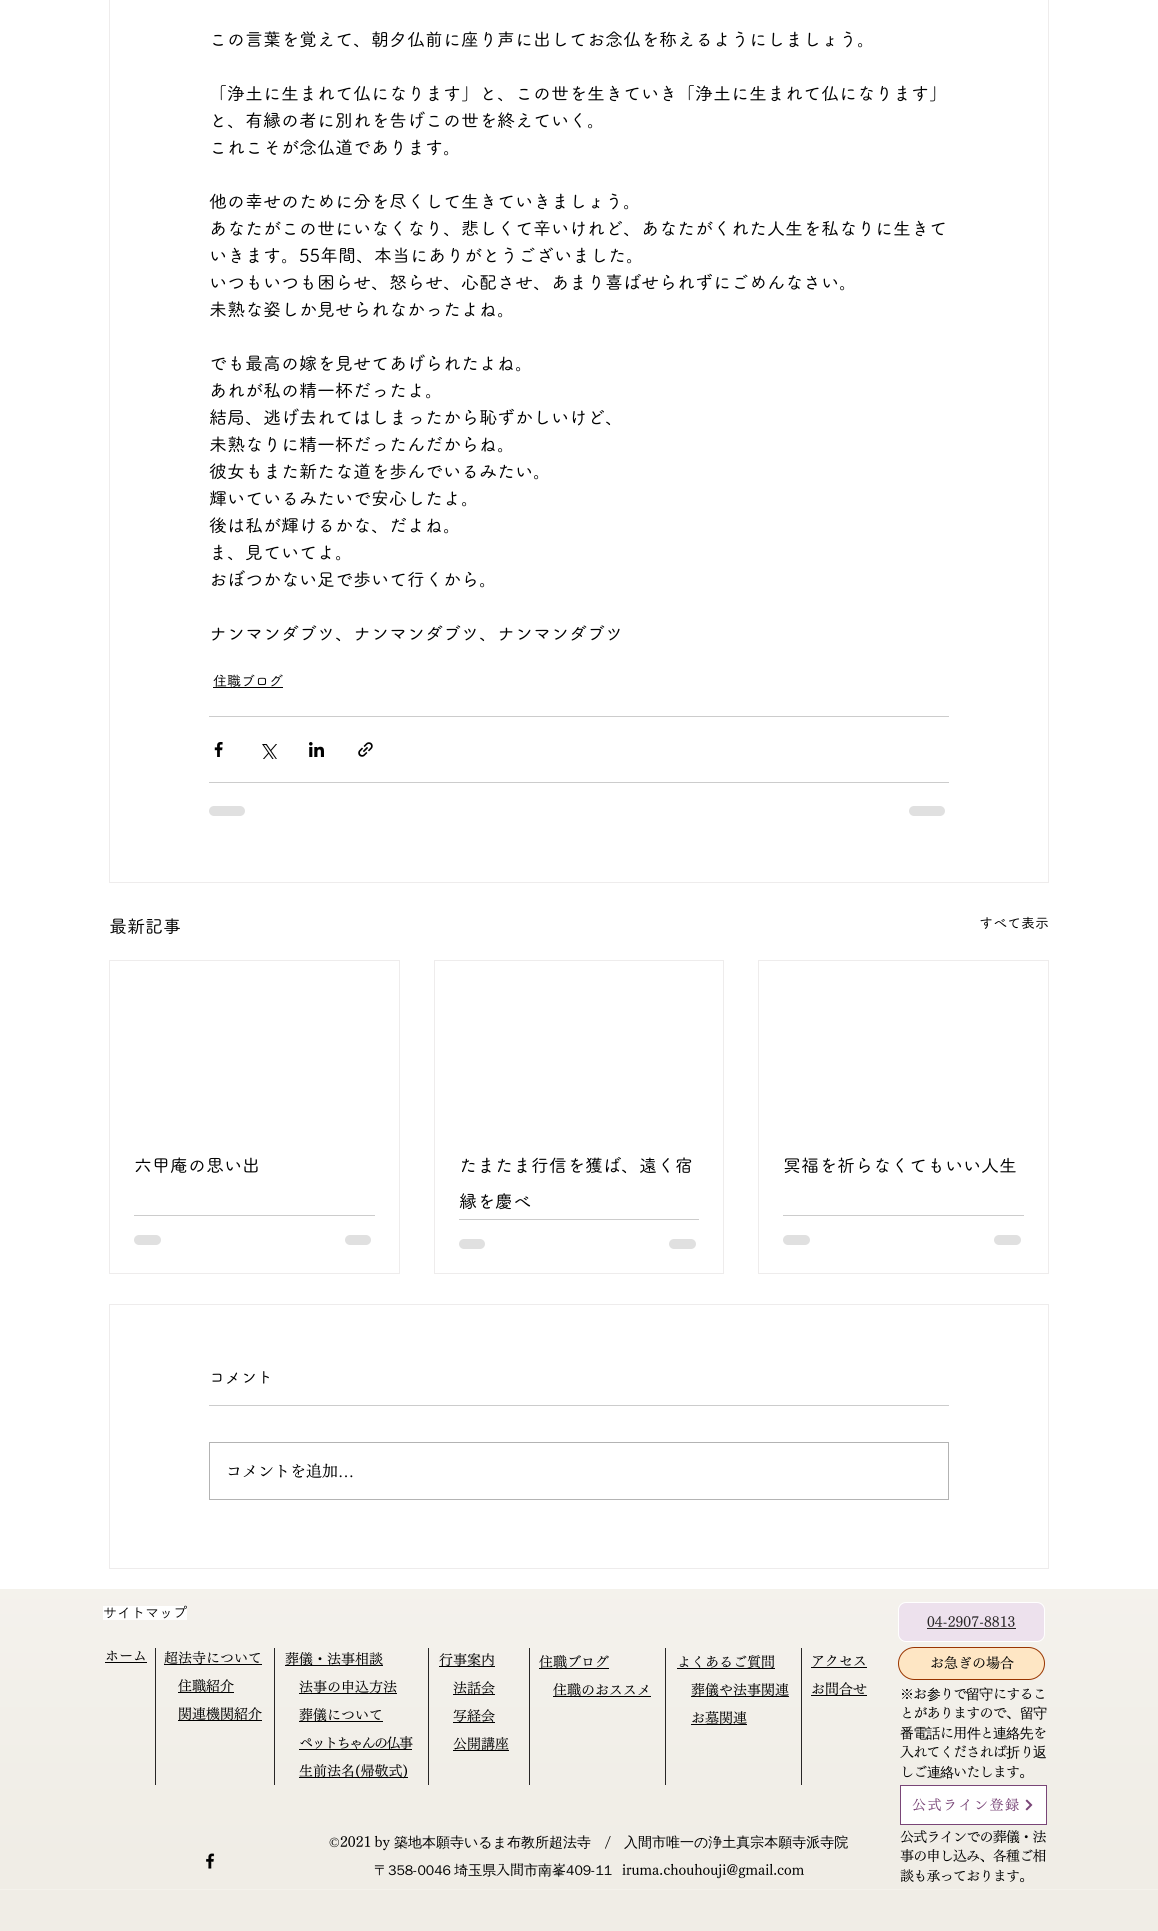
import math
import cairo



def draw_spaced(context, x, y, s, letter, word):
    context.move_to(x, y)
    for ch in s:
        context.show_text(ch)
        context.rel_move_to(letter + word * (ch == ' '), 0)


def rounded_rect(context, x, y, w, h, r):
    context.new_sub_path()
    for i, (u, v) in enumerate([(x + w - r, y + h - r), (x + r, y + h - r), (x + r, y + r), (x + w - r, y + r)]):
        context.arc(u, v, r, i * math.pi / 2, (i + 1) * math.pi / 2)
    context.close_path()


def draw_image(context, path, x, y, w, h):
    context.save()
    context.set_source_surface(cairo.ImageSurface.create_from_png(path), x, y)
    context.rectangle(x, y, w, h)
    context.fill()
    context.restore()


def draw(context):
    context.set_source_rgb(1, 1, 1)
    context.paint()
    context.rectangle(109.5, -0.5, 939, 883)
    context.set_source_rgb(238 / 255, 236 / 255, 236 / 255)
    context.set_line_width(1)
    context.stroke()
    context.set_source_rgb(0, 0, 0)
    context.rectangle(213, 687, 70, 1)
    context.fill()
    context.set_source_rgb(204 / 255, 204 / 255, 204 / 255)
    context.rectangle(209, 716, 740, 1)
    context.fill()
    draw_image(context, "images/1.png", 214, 742, 9, 15)
    draw_image(context, "images/2.png", 262, 744, 15, 15)
    draw_image(context, "images/3.png", 309, 742, 15, 15)
    draw_image(context, "images/4.png", 358, 742, 15, 15)
    context.rectangle(209, 782, 740, 1)
    context.fill()
    context.set_source_rgb(224 / 255, 224 / 255, 224 / 255)
    rounded_rect(context, 209, 806, 36, 10, 5)
    context.fill()
    rounded_rect(context, 909, 806, 36, 10, 5)
    context.fill()
    context.rectangle(109.5, 960.5, 290, 313)
    context.set_source_rgb(238 / 255, 236 / 255, 236 / 255)
    context.stroke()
    context.set_source_rgb(204 / 255, 204 / 255, 204 / 255)
    context.rectangle(134, 1215, 241, 1)
    context.fill()
    context.set_source_rgb(224 / 255, 224 / 255, 224 / 255)
    rounded_rect(context, 134, 1235, 27, 10, 5)
    context.fill()
    rounded_rect(context, 345, 1235, 26, 10, 5)
    context.fill()
    context.rectangle(434.5, 960.5, 289, 313)
    context.set_source_rgb(238 / 255, 236 / 255, 236 / 255)
    context.stroke()
    context.set_source_rgb(204 / 255, 204 / 255, 204 / 255)
    context.rectangle(459, 1219, 240, 1)
    context.fill()
    context.set_source_rgb(224 / 255, 224 / 255, 224 / 255)
    rounded_rect(context, 459, 1239, 26, 10, 5)
    context.fill()
    rounded_rect(context, 669, 1239, 27, 10, 5)
    context.fill()
    context.rectangle(758.5, 960.5, 290, 313)
    context.set_source_rgb(238 / 255, 236 / 255, 236 / 255)
    context.stroke()
    context.set_source_rgb(204 / 255, 204 / 255, 204 / 255)
    context.rectangle(783, 1215, 241, 1)
    context.fill()
    context.set_source_rgb(224 / 255, 224 / 255, 224 / 255)
    rounded_rect(context, 783, 1235, 27, 10, 5)
    context.fill()
    rounded_rect(context, 994, 1235, 27, 10, 5)
    context.fill()
    context.rectangle(109.5, 1304.5, 939, 264)
    context.set_source_rgb(238 / 255, 236 / 255, 236 / 255)
    context.stroke()
    context.set_source_rgb(204 / 255, 204 / 255, 204 / 255)
    context.rectangle(209, 1405, 740, 1)
    context.fill()
    context.rectangle(209.5, 1442.5, 739, 57)
    context.set_source_rgb(179 / 255, 179 / 255, 179 / 255)
    context.stroke()
    context.set_source_rgb(240 / 255, 237 / 255, 230 / 255)
    context.rectangle(0, 1589, 1158, 342)
    context.fill()
    draw_image(context, "images/5.png", 0, 1589, 1158, 301)
    context.set_source_rgb(1, 1, 1)
    context.rectangle(103, 1606, 84, 14)
    context.fill()
    context.set_source_rgb(237 / 255, 225 / 255, 237 / 255)
    rounded_rect(context, 898.5, 1602.5, 146, 39, 7.5)
    context.fill_preserve()
    context.set_source_rgb(1, 1, 1)
    context.stroke()
    context.set_source_rgb(40 / 255, 38 / 255, 38 / 255)
    context.rectangle(927, 1628, 89, 1)
    context.fill()
    context.set_source_rgb(0, 0, 0)
    context.rectangle(105, 1662, 42, 1)
    context.fill()
    context.set_source_rgb(40 / 255, 38 / 255, 38 / 255)
    context.rectangle(155, 1648, 1, 137)
    context.fill()
    context.set_source_rgb(0, 0, 0)
    context.rectangle(164, 1664, 98, 1)
    context.fill()
    context.rectangle(178, 1692, 56, 1)
    context.fill()
    context.rectangle(178, 1720, 84, 1)
    context.fill()
    context.set_source_rgb(40 / 255, 38 / 255, 38 / 255)
    context.rectangle(274, 1648, 1, 137)
    context.fill()
    context.set_source_rgb(0, 0, 0)
    context.rectangle(285, 1665, 98, 1)
    context.fill()
    context.rectangle(299, 1693, 98, 1)
    context.fill()
    context.rectangle(299, 1721, 84, 1)
    context.fill()
    context.rectangle(299, 1749, 113, 1)
    context.fill()
    context.rectangle(299, 1777, 109, 1)
    context.fill()
    context.set_source_rgb(40 / 255, 38 / 255, 38 / 255)
    context.rectangle(428, 1648, 1, 137)
    context.fill()
    context.set_source_rgb(0, 0, 0)
    context.rectangle(439, 1666, 56, 1)
    context.fill()
    context.rectangle(453, 1694, 42, 1)
    context.fill()
    context.rectangle(453, 1722, 42, 1)
    context.fill()
    context.rectangle(453, 1750, 56, 1)
    context.fill()
    context.set_source_rgb(40 / 255, 38 / 255, 38 / 255)
    context.rectangle(529, 1648, 1, 137)
    context.fill()
    context.set_source_rgb(0, 0, 0)
    context.rectangle(539, 1668, 70, 1)
    context.fill()
    context.rectangle(553, 1696, 98, 1)
    context.fill()
    context.set_source_rgb(40 / 255, 38 / 255, 38 / 255)
    context.rectangle(665, 1648, 1, 137)
    context.fill()
    context.set_source_rgb(0, 0, 0)
    context.rectangle(677, 1668, 98, 1)
    context.fill()
    context.rectangle(691, 1696, 98, 1)
    context.fill()
    context.rectangle(691, 1724, 56, 1)
    context.fill()
    context.set_source_rgb(40 / 255, 38 / 255, 38 / 255)
    context.rectangle(801, 1648, 1, 137)
    context.fill()
    context.set_source_rgb(0, 0, 0)
    context.rectangle(811, 1667, 56, 1)
    context.fill()
    context.rectangle(811, 1695, 56, 1)
    context.fill()
    context.set_source_rgb(254 / 255, 230 / 255, 196 / 255)
    rounded_rect(context, 898.5, 1647.5, 146, 32, 16)
    context.fill_preserve()
    context.set_source_rgb(153 / 255, 53 / 255, 0)
    context.stroke()
    context.set_source_rgb(1, 1, 1)
    context.rectangle(900.5, 1785.5, 146, 39)
    context.fill_preserve()
    context.set_source_rgb(121 / 255, 69 / 255, 119 / 255)
    context.stroke()
    draw_image(context, "images/6.png", 1025, 1799, 8, 12)
    draw_image(context, "images/7.png", 206, 1853, 9, 16)
    context.select_font_face("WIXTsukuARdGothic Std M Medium")
    context.set_font_size(18)
    context.set_source_rgb(0, 0, 0)
    context.move_to(209, 46)
    context.show_text("この言葉を覚えて、朝夕仏前に座り声に出してお念仏を称えるようにしましょう。")
    context.move_to(209, 100)
    context.show_text("「浄土に生まれて仏になります」と、この世を生きていき「浄土に生まれて仏になります」")
    context.move_to(209, 127)
    context.show_text("と、有縁の者に別れを告げこの世を終えていく。")
    context.move_to(209, 154)
    context.show_text("これこそが念仏道であります。")
    context.move_to(209, 208)
    context.show_text("他の幸せのために分を尽くして生きていきましょう。")
    context.move_to(209, 235)
    context.show_text("あなたがこの世にいなくなり、悲しくて辛いけれど、あなたがくれた人生を私なりに生きて")
    context.move_to(209, 262)
    context.show_text("いきます。55年間、本当にありがとうございました。")
    context.move_to(209, 289)
    context.show_text("いつもいつも困らせ、怒らせ、心配させ、あまり喜ばせられずにごめんなさい。")
    context.move_to(209, 316)
    context.show_text("未熟な姿しか見せられなかったよね。")
    context.move_to(209, 370)
    context.show_text("でも最高の嫁を見せてあげられたよね。")
    context.move_to(209, 397)
    context.show_text("あれが私の精一杯だったよ。")
    context.move_to(209, 424)
    context.show_text("結局、逃げ去れてはしまったから恥ずかしいけど、")
    context.move_to(209, 451)
    context.show_text("未熟なりに精一杯だったんだからね。")
    context.move_to(209, 478)
    context.show_text("彼女もまた新たな道を歩んでいるみたい。")
    context.move_to(209, 505)
    context.show_text("輝いているみたいで安心したよ。")
    context.move_to(209, 532)
    context.show_text("後は私が輝けるかな、だよね。")
    context.move_to(209, 559)
    context.show_text("ま、見ていてよ。")
    context.move_to(209, 586)
    context.show_text("おぼつかない足で歩いて行くから。")
    context.move_to(209, 640)
    context.show_text("ナンマンダブツ、ナンマンダブツ、ナンマンダブツ")
    context.set_font_size(14)
    context.move_to(213, 686)
    context.show_text("住職ブログ")
    context.set_font_size(18)
    context.move_to(109, 933)
    context.show_text("最新記事")
    context.set_font_size(14)
    context.move_to(979, 928)
    context.show_text("すべて表示")
    context.set_font_size(18)
    context.move_to(134, 1172)
    context.show_text("六甲庵の思い出")
    context.move_to(459, 1172)
    context.show_text("たまたま行信を獲ば、遠く宿")
    context.move_to(459, 1208)
    context.show_text("縁を慶べ")
    context.move_to(783, 1172)
    context.show_text("冥福を祈らなくてもいい人生")
    context.set_font_size(16)
    context.move_to(209, 1383)
    context.show_text("コメント")
    context.select_font_face("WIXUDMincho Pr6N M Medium")
    context.move_to(226, 1477)
    context.show_text("コメントを追加")
    context.select_font_face("Liberation Serif")
    context.move_to(338, 1477)
    context.show_text("…")
    context.select_font_face("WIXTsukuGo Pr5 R")
    context.set_font_size(14)
    context.move_to(103, 1618)
    context.show_text("サイトマップ")
    context.select_font_face("WIXUDMincho Pr6N M Medium")
    context.set_source_rgb(40 / 255, 38 / 255, 38 / 255)
    context.move_to(927, 1627)
    context.show_text("04-2907-8813")
    context.set_source_rgb(0, 0, 0)
    context.move_to(105, 1661)
    context.show_text("ホーム")
    context.move_to(164, 1663)
    context.show_text("超法寺について")
    context.move_to(178, 1691)
    context.show_text("住職紹介")
    context.move_to(178, 1719)
    context.show_text("関連機関紹介")
    context.move_to(285, 1664)
    context.show_text("葬儀・法事相談")
    context.move_to(299, 1692)
    context.show_text("法事の申込方法")
    context.move_to(299, 1720)
    context.show_text("葬儀について")
    draw_spaced(context, 299, 1748, "ペットちゃんの仏事", -1.5, 0)
    context.move_to(299, 1776)
    context.show_text("生前法名(帰敬式)")
    context.move_to(439, 1665)
    context.show_text("行事案内")
    context.move_to(453, 1693)
    context.show_text("法話会")
    context.move_to(453, 1721)
    context.show_text("写経会")
    context.move_to(453, 1749)
    context.show_text("公開講座")
    context.move_to(539, 1667)
    context.show_text("住職ブログ")
    context.move_to(553, 1695)
    context.show_text("住職のおススメ")
    context.move_to(677, 1667)
    context.show_text("よくあるご質問")
    context.move_to(691, 1695)
    context.show_text("葬儀や法事関連")
    context.move_to(691, 1723)
    context.show_text("お墓関連")
    context.move_to(811, 1666)
    context.show_text("アクセス")
    context.move_to(811, 1694)
    context.show_text("お問合せ")
    context.move_to(930, 1668)
    context.show_text("お急ぎの場合")
    context.select_font_face("WenQuanYi Zen Hei Medium")
    draw_spaced(context, 900, 1699, "※", -0.75, 0)
    context.select_font_face("WIXUDMincho Pr6N M Medium")
    draw_spaced(context, 913, 1699, "お", -0.75, 0)
    context.select_font_face("WenQuanYi Zen Hei Medium")
    draw_spaced(context, 927, 1699, "参", -0.75, 0)
    context.select_font_face("WIXUDMincho Pr6N M Medium")
    draw_spaced(context, 940, 1699, "りで", -0.75, 0)
    context.select_font_face("WenQuanYi Zen Hei Medium")
    draw_spaced(context, 966, 1699, "留守", -0.75, 0)
    context.select_font_face("WIXUDMincho Pr6N M Medium")
    draw_spaced(context, 993, 1699, "にするこ", -0.75, 0)
    draw_spaced(context, 900, 1718, "とがありますので、", -0.75, 0)
    context.select_font_face("WenQuanYi Zen Hei Medium")
    draw_spaced(context, 1020, 1718, "留守", -0.75, 0)
    draw_spaced(context, 900, 1738, "番電話", -0.75, 0)
    context.select_font_face("WIXUDMincho Pr6N M Medium")
    draw_spaced(context, 940, 1738, "に用", -0.75, 0)
    context.select_font_face("WenQuanYi Zen Hei Medium")
    draw_spaced(context, 967, 1738, "件", -0.75, 0)
    context.select_font_face("WIXUDMincho Pr6N M Medium")
    draw_spaced(context, 980, 1738, "と", -0.75, 0)
    context.select_font_face("WenQuanYi Zen Hei Medium")
    draw_spaced(context, 993, 1738, "連絡先", -0.75, 0)
    context.select_font_face("WIXUDMincho Pr6N M Medium")
    draw_spaced(context, 1033, 1738, "を", -0.75, 0)
    draw_spaced(context, 900, 1757, "入れてくだされば", -0.75, 0)
    context.select_font_face("WenQuanYi Zen Hei Medium")
    draw_spaced(context, 1006, 1757, "折", -0.75, 0)
    context.select_font_face("WIXUDMincho Pr6N M Medium")
    draw_spaced(context, 1020, 1757, "り", -0.75, 0)
    context.select_font_face("WenQuanYi Zen Hei Medium")
    draw_spaced(context, 1033, 1757, "返", -0.75, 0)
    context.select_font_face("WIXUDMincho Pr6N M Medium")
    draw_spaced(context, 900, 1777, "しご", -0.75, 0)
    context.select_font_face("WenQuanYi Zen Hei Medium")
    draw_spaced(context, 927, 1777, "連絡", -0.75, 0)
    context.select_font_face("WIXUDMincho Pr6N M Medium")
    draw_spaced(context, 953, 1777, "いたします。", -0.75, 0)
    context.set_source_rgb(121 / 255, 69 / 255, 119 / 255)
    draw_spaced(context, 912, 1810, "公式ライン登録", 1.5, 0)
    context.select_font_face("Liberation Serif")
    context.set_source_rgb(0, 0, 0)
    context.move_to(329, 1847)
    context.show_text("©")
    context.select_font_face("WIXUDMincho Pr6N M Medium")
    draw_spaced(context, 340, 1847, "2021 by", 0, -1)
    context.select_font_face("WenQuanYi Zen Hei Medium")
    context.move_to(394, 1847)
    context.show_text("築地本願寺いるま布教所超法寺")
    context.select_font_face("WIXUDMincho Pr6N M Medium")
    context.move_to(605, 1847)
    context.show_text("/")
    context.select_font_face("WenQuanYi Zen Hei Medium")
    context.move_to(624, 1847)
    context.show_text("入間市唯一の浄土真宗本願寺派寺院")
    draw_spaced(context, 374, 1875, "〒358-0046 埼玉県", 0, -1)
    context.select_font_face("WIXUDMincho Pr6N M Medium")
    context.move_to(496, 1875)
    context.show_text("入間")
    context.select_font_face("WenQuanYi Zen Hei Medium")
    context.move_to(524, 1875)
    context.show_text("市南峯409-11")
    context.select_font_face("WIXUDMincho Pr6N M Medium")
    context.move_to(622, 1875)
    context.show_text("iruma.chouhouji@gmail.com")
    draw_spaced(context, 900, 1842, "公式ラインでの葬儀・法", -0.75, 0)
    draw_spaced(context, 900, 1861, "事の申し込み、各種ご相", -0.75, 0)
    draw_spaced(context, 900, 1881, "談も承っております。", -0.75, 0)


surface = cairo.ImageSurface(cairo.Format.RGB24, 1158, 1931)
context = cairo.Context(surface)
options = cairo.FontOptions()
options.set_hint_metrics(cairo.HintMetrics.OFF)
options.set_hint_style(cairo.HintStyle.NONE)
context.set_font_options(options)
context.set_miter_limit(4)
draw(context)
surface.write_to_png("out.png")
